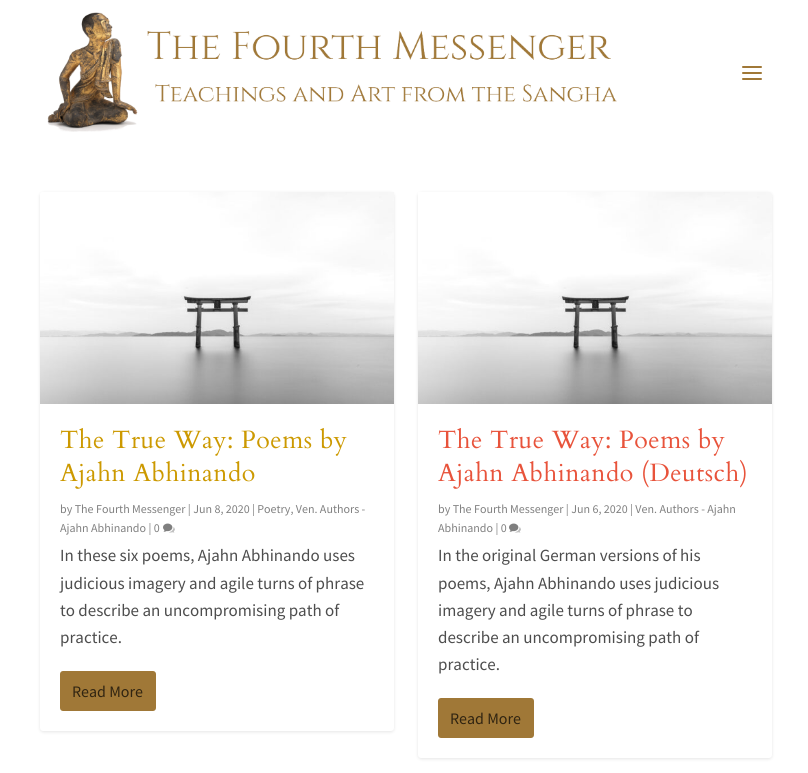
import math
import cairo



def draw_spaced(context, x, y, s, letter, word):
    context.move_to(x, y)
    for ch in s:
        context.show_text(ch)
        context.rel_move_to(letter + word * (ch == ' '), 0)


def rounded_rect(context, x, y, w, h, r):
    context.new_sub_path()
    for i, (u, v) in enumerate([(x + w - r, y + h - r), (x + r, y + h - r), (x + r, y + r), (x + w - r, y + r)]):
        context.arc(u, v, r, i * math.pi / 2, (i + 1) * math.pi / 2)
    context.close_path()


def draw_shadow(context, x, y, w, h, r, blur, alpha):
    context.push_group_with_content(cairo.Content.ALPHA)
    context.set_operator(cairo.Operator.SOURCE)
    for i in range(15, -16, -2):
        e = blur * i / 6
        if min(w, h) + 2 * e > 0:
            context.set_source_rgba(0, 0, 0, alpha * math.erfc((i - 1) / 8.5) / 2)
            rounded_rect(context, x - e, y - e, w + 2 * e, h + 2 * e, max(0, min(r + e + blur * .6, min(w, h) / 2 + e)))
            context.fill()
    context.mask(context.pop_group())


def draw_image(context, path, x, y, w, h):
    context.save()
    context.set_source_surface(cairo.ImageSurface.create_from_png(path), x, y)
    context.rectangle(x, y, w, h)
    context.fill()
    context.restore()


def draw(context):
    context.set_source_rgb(1, 1, 1)
    context.paint()
    draw_image(context, "images/1.png", 47, 12, 570, 120)
    context.set_source_rgb(160 / 255, 120 / 255, 55 / 255)
    rounded_rect(context, 742, 66, 20, 2, 1)
    context.fill()
    rounded_rect(context, 742, 72, 20, 2, 1)
    context.fill()
    rounded_rect(context, 742, 78, 20, 2, 1)
    context.fill()
    context.set_source_rgb(0, 0, 0)
    draw_shadow(context, 40, 193, 354, 539, 3, 1.5, 0.1)
    context.set_source_rgb(1, 1, 1)
    rounded_rect(context, 40, 192, 354, 539, 3)
    context.fill()
    draw_image(context, "images/2.png", 40, 192, 354, 212)
    draw_image(context, "images/3.png", 163, 523, 12, 10)
    context.set_source_rgb(160 / 255, 120 / 255, 55 / 255)
    rounded_rect(context, 60, 671, 96, 40, 3)
    context.fill()
    context.set_source_rgb(0, 0, 0)
    draw_shadow(context, 418, 193, 354, 566, 3, 1.5, 0.1)
    context.set_source_rgb(1, 1, 1)
    rounded_rect(context, 418, 192, 354, 566, 3)
    context.fill()
    draw_image(context, "images/4.png", 418, 192, 354, 212)
    draw_image(context, "images/3.png", 509, 523, 12, 10)
    context.set_source_rgb(160 / 255, 120 / 255, 55 / 255)
    rounded_rect(context, 438, 698, 96, 40, 3)
    context.fill()
    context.select_font_face("Cardo")
    context.set_font_size(25)
    context.set_source_rgb(204 / 255, 153 / 255, 0)
    draw_spaced(context, 60, 448, "The True Way: Poems by", 0.5, 0)
    draw_spaced(context, 60, 481, "Ajahn Abhinando", 0.5, 0)
    context.select_font_face("Source Sans Pro")
    context.set_font_size(12)
    context.set_source_rgb(128 / 255, 128 / 255, 128 / 255)
    context.move_to(60, 513)
    context.show_text("by The Fourth Messenger | Jun 8, 2020 | Poetry, Ven. Authors -")
    context.move_to(60, 532)
    context.show_text("Ajahn Abhinando | 0")
    context.set_font_size(17)
    context.set_source_rgb(77 / 255, 77 / 255, 77 / 255)
    context.move_to(60, 561)
    context.show_text("In these six poems, Ajahn Abhinando uses")
    context.move_to(60, 589)
    context.show_text("judicious imagery and agile turns of phrase")
    context.move_to(60, 616)
    context.show_text("to describe an uncompromising path of")
    context.move_to(60, 643)
    context.show_text("practice.")
    context.set_font_size(16)
    context.set_source_rgb(48 / 255, 36 / 255, 17 / 255)
    context.move_to(72, 697)
    context.show_text("Read More")
    context.select_font_face("Cardo")
    context.set_font_size(25)
    context.set_source_rgb(232 / 255, 83 / 255, 59 / 255)
    draw_spaced(context, 438, 448, "The True Way: Poems by", 0.5, 0)
    draw_spaced(context, 438, 481, "Ajahn Abhinando (Deutsch)", 0.5, 0)
    context.select_font_face("Source Sans Pro")
    context.set_font_size(12)
    context.set_source_rgb(128 / 255, 128 / 255, 128 / 255)
    context.move_to(438, 513)
    context.show_text("by The Fourth Messenger | Jun 6, 2020 | Ven. Authors - Ajahn")
    context.move_to(438, 532)
    context.show_text("Abhinando | 0")
    context.set_font_size(17)
    context.set_source_rgb(77 / 255, 77 / 255, 77 / 255)
    context.move_to(438, 561)
    context.show_text("In the original German versions of his")
    context.move_to(438, 589)
    context.show_text("poems, Ajahn Abhinando uses judicious")
    context.move_to(438, 616)
    context.show_text("imagery and agile turns of phrase to")
    context.move_to(438, 643)
    context.show_text("describe an uncompromising path of")
    context.move_to(438, 670)
    context.show_text("practice.")
    context.set_font_size(16)
    context.set_source_rgb(48 / 255, 36 / 255, 17 / 255)
    context.move_to(450, 724)
    context.show_text("Read More")


surface = cairo.ImageSurface(cairo.Format.RGB24, 808, 773)
context = cairo.Context(surface)
options = cairo.FontOptions()
options.set_hint_metrics(cairo.HintMetrics.OFF)
options.set_hint_style(cairo.HintStyle.NONE)
context.set_font_options(options)
context.set_miter_limit(4)
draw(context)
surface.write_to_png("out.png")
